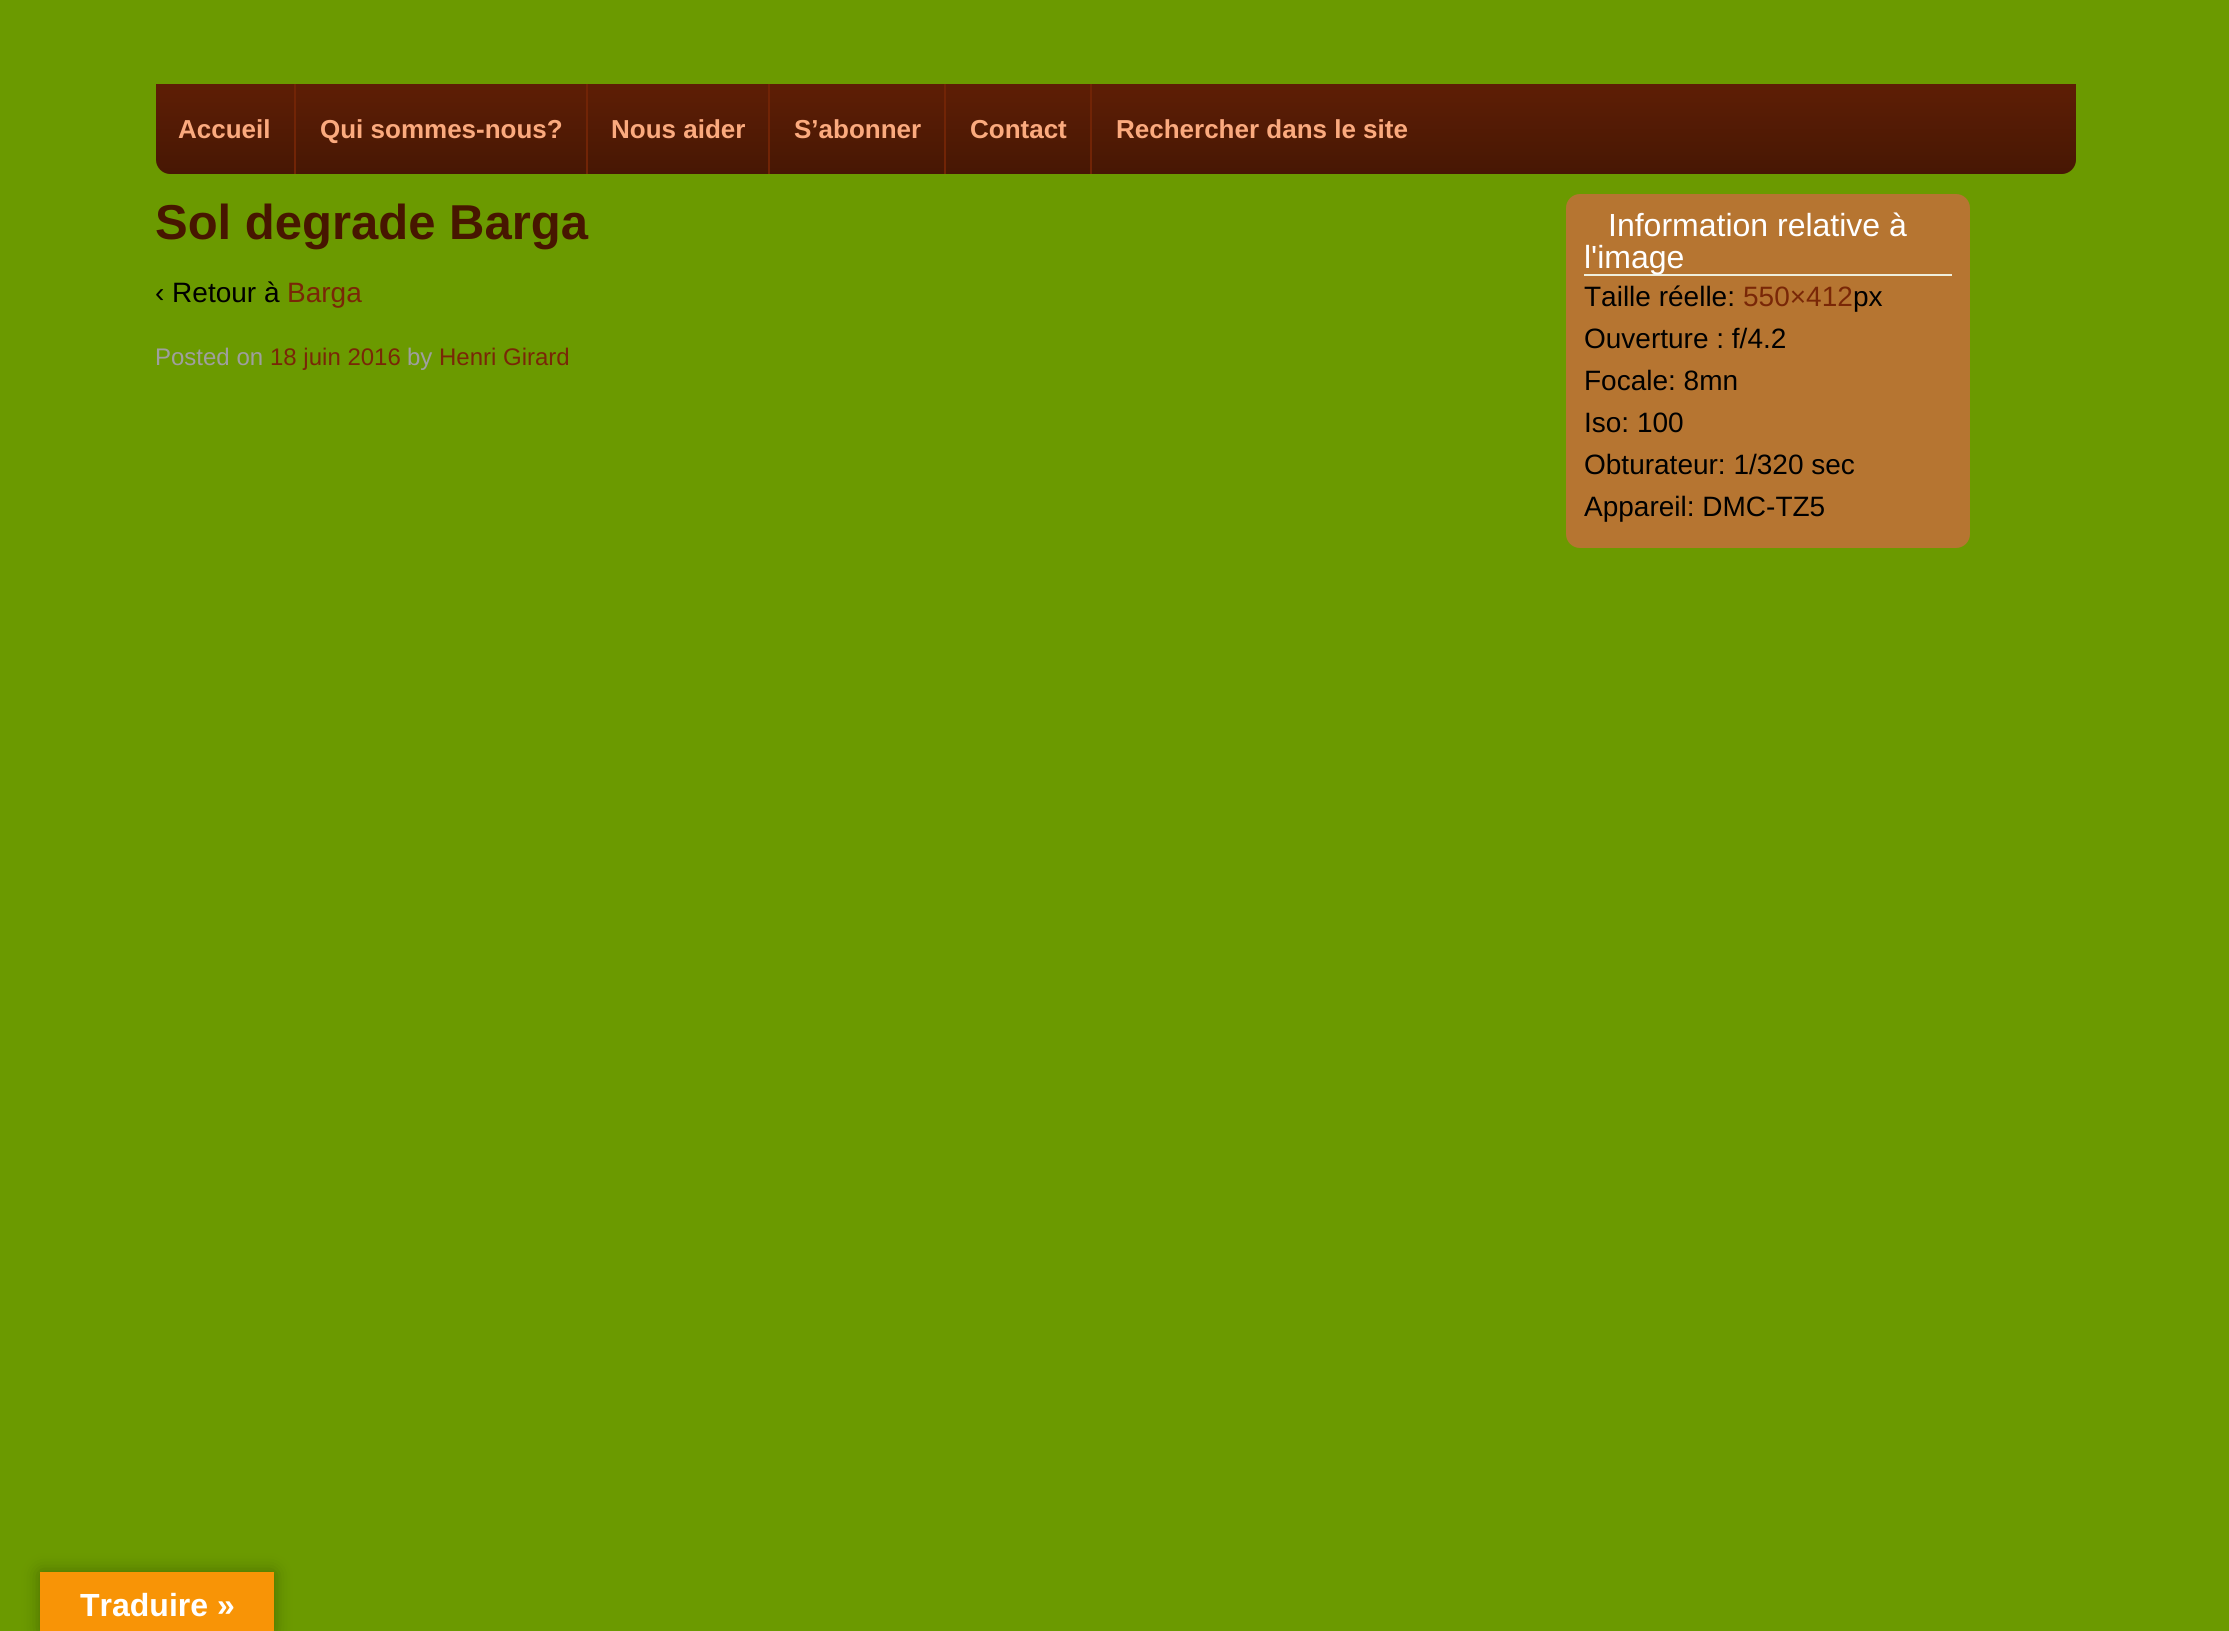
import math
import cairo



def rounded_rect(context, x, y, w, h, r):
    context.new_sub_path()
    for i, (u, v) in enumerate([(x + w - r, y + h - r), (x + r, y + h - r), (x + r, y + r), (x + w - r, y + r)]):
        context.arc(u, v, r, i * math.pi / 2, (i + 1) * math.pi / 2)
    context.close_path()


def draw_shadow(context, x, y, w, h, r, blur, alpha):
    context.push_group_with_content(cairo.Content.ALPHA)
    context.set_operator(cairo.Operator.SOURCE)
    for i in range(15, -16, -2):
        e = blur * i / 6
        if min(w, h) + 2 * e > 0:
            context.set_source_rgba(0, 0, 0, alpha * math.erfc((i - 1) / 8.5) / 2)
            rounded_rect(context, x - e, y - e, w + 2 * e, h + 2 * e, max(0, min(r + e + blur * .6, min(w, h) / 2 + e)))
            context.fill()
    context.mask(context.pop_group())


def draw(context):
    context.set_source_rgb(107 / 255, 154 / 255, 0)
    context.paint()
    gradient = cairo.LinearGradient(1116, 84, 1116, 174)
    gradient.add_color_stop_rgba(0, 94 / 255, 30 / 255, 5 / 255, 1)
    gradient.add_color_stop_rgba(1, 71 / 255, 23 / 255, 4 / 255, 1)
    context.set_source(gradient)
    context.new_path()
    context.move_to(156, 84)
    context.line_to(2076, 84)
    context.line_to(2076, 160)
    context.curve_to(2076, 167.5, 2069.5, 174, 2062, 174)
    context.line_to(170, 174)
    context.curve_to(162.5, 174, 156, 167.5, 156, 160)
    context.close_path()
    context.fill()
    context.set_source_rgb(113 / 255, 36 / 255, 6 / 255)
    context.rectangle(294, 84, 2, 90)
    context.fill()
    context.rectangle(586, 84, 2, 90)
    context.fill()
    context.rectangle(768, 84, 2, 90)
    context.fill()
    context.rectangle(944, 84, 2, 90)
    context.fill()
    context.rectangle(1090, 84, 2, 90)
    context.fill()
    context.set_source_rgb(182 / 255, 117 / 255, 49 / 255)
    rounded_rect(context, 1566, 194, 404, 354, 14)
    context.fill()
    context.set_source_rgb(239 / 255, 239 / 255, 221 / 255)
    context.rectangle(1584, 274, 368, 2)
    context.fill()
    context.set_source_rgb(0, 0, 0)
    draw_shadow(context, 40, 1572, 234, 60, 0, 9, 0.3)
    context.set_source_rgb(248 / 255, 148 / 255, 6 / 255)
    context.rectangle(40, 1572, 234, 59)
    context.fill()
    context.select_font_face("Liberation Sans", cairo.FontSlant.NORMAL, cairo.FontWeight.BOLD)
    context.set_font_size(26)
    context.set_source_rgb(251 / 255, 170 / 255, 126 / 255)
    context.move_to(178, 138)
    context.show_text("Accueil")
    context.move_to(320, 138)
    context.show_text("Qui sommes-nous?")
    context.move_to(611, 138)
    context.show_text("Nous aider")
    context.move_to(794, 138)
    context.show_text("S’abonner")
    context.move_to(970, 138)
    context.show_text("Contact")
    context.move_to(1116, 138)
    context.show_text("Rechercher dans le site")
    context.set_font_size(49)
    context.set_source_rgb(71 / 255, 22 / 255, 0)
    context.move_to(155, 239)
    context.show_text("Sol degrade Barga")
    context.select_font_face("Liberation Sans")
    context.set_font_size(28)
    context.set_source_rgb(0, 0, 0)
    context.move_to(155, 302)
    context.show_text("‹ Retour à")
    context.set_source_rgb(121 / 255, 39 / 255, 7 / 255)
    context.move_to(287, 302)
    context.show_text("Barga")
    context.set_font_size(24)
    context.set_source_rgb(159 / 255, 159 / 255, 159 / 255)
    context.move_to(155, 365)
    context.show_text("Posted on")
    context.set_source_rgb(121 / 255, 39 / 255, 7 / 255)
    context.move_to(270, 365)
    context.show_text("18 juin 2016")
    context.set_source_rgb(159 / 255, 159 / 255, 159 / 255)
    context.move_to(407, 365)
    context.show_text("by")
    context.set_source_rgb(121 / 255, 39 / 255, 7 / 255)
    context.move_to(439, 365)
    context.show_text("Henri Girard")
    context.set_font_size(32)
    context.set_source_rgb(1, 1, 1)
    context.move_to(1608, 236)
    context.show_text("Information relative à")
    context.move_to(1584, 268)
    context.show_text("l'image")
    context.set_font_size(28)
    context.set_source_rgb(0, 0, 0)
    context.move_to(1584, 306)
    context.show_text("Taille réelle:")
    context.set_source_rgb(121 / 255, 39 / 255, 7 / 255)
    context.move_to(1743, 306)
    context.show_text("550×412")
    context.set_source_rgb(0, 0, 0)
    context.move_to(1853, 306)
    context.show_text("px")
    context.move_to(1584, 348)
    context.show_text("Ouverture : f/4.2")
    context.move_to(1584, 390)
    context.show_text("Focale: 8mn")
    context.move_to(1584, 432)
    context.show_text("Iso: 100")
    context.move_to(1584, 474)
    context.show_text("Obturateur: 1/320 sec")
    context.move_to(1584, 516)
    context.show_text("Appareil: DMC-TZ5")
    context.select_font_face("Liberation Sans", cairo.FontSlant.NORMAL, cairo.FontWeight.BOLD)
    context.set_font_size(32)
    context.set_source_rgb(1, 1, 1)
    context.move_to(80, 1616)
    context.show_text("Traduire »")


surface = cairo.ImageSurface(cairo.Format.RGB24, 2229, 1631)
context = cairo.Context(surface)
options = cairo.FontOptions()
options.set_hint_metrics(cairo.HintMetrics.OFF)
options.set_hint_style(cairo.HintStyle.NONE)
context.set_font_options(options)
context.set_miter_limit(4)
draw(context)
surface.write_to_png("out.png")
